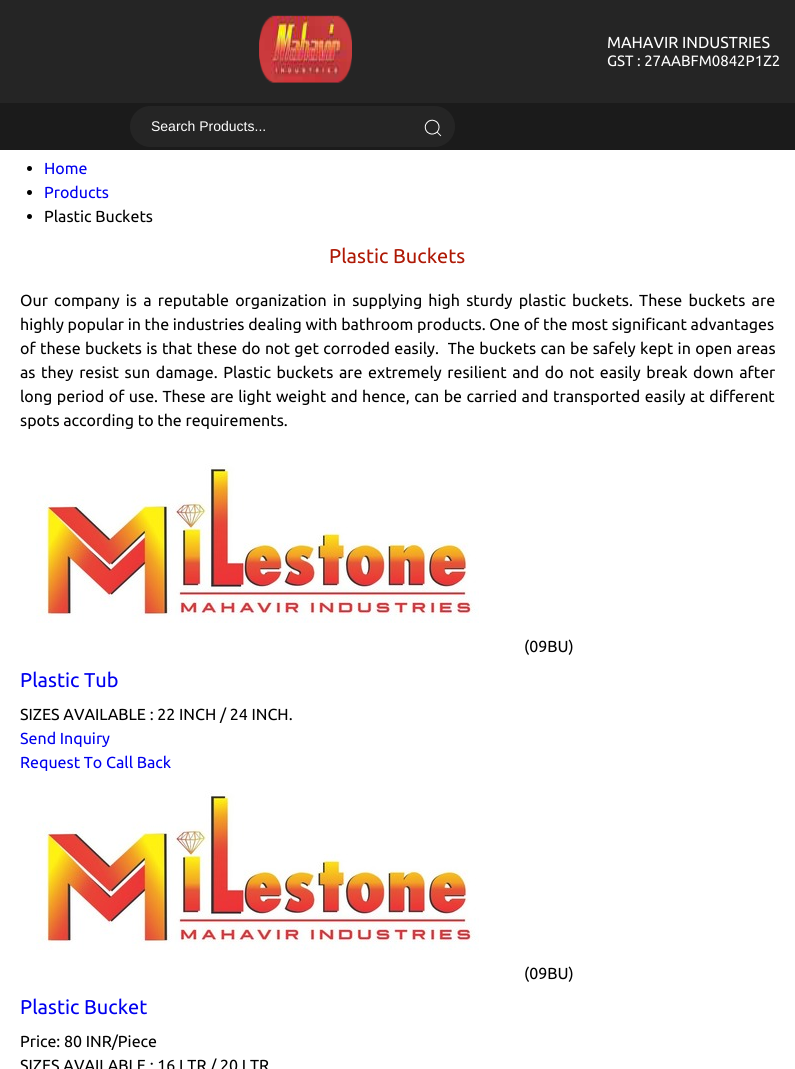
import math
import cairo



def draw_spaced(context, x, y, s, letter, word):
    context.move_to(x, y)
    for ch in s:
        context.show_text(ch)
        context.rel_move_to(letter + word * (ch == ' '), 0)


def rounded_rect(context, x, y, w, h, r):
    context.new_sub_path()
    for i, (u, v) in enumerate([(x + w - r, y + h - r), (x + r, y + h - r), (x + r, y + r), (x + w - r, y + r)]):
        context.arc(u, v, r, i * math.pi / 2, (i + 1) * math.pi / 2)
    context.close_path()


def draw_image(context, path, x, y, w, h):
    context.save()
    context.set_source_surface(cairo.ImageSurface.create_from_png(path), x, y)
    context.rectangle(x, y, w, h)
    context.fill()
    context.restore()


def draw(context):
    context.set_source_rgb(37 / 255, 37 / 255, 37 / 255)
    context.paint()
    draw_image(context, "images/1.png", 259, 15, 93, 68)
    context.set_source_rgb(27 / 255, 27 / 255, 27 / 255)
    context.rectangle(0, 103, 795, 47)
    context.fill()
    context.set_source_rgb(37 / 255, 37 / 255, 37 / 255)
    rounded_rect(context, 130, 106, 325, 41, 20.5)
    context.fill()
    draw_image(context, "images/2.png", 424, 119, 18, 18)
    context.set_source_rgb(1, 1, 1)
    context.rectangle(0, 150, 795, 919)
    context.fill()
    context.set_source_rgb(0, 0, 0)
    context.arc(29.5, 168.5, 2.5, 0, 2 * math.pi)
    context.fill()
    context.arc(29.5, 192.5, 2.5, 0, 2 * math.pi)
    context.fill()
    context.arc(29.5, 216.5, 2.5, 0, 2 * math.pi)
    context.fill()
    draw_image(context, "images/3.png", 36, 463, 443, 160)
    draw_image(context, "images/3.png", 36, 790, 443, 160)
    context.select_font_face("Ubuntu")
    context.set_font_size(16)
    context.set_source_rgb(1, 1, 1)
    context.move_to(607, 48)
    context.show_text("MAHAVIR INDUSTRIES")
    context.set_font_size(15)
    context.move_to(607, 66)
    context.show_text("GST : 27AABFM0842P1Z2")
    context.select_font_face("Liberation Sans")
    context.set_font_size(14)
    context.move_to(151, 131)
    context.show_text("Search Products...")
    context.select_font_face("Ubuntu")
    context.set_font_size(16)
    context.set_source_rgb(0, 0, 238 / 255)
    context.move_to(44, 174)
    context.show_text("Home")
    context.move_to(44, 198)
    context.show_text("Products")
    context.set_source_rgb(0, 0, 0)
    context.move_to(44, 222)
    context.show_text("Plastic Buckets")
    context.set_font_size(20)
    context.set_source_rgb(174 / 255, 25 / 255, 5 / 255)
    context.move_to(329, 263)
    context.show_text("Plastic Buckets")
    context.set_font_size(16)
    context.set_source_rgb(0, 0, 0)
    draw_spaced(context, 20, 306, "Our company is a reputable organization in supplying high sturdy plastic buckets. These buckets are", 0, 2.5)
    context.move_to(20, 330)
    context.show_text("highly popular in the industries dealing with bathroom products. One of the most significant advantages")
    draw_spaced(context, 20, 354, "of these buckets is that these do not get corroded easily.  The buckets can be safely kept in open areas", 0, 0.7)
    draw_spaced(context, 20, 378, "as they resist sun damage. Plastic buckets are extremely resilient and do not easily break down after", 0, 1.9)
    draw_spaced(context, 20, 402, "long period of use. These are light weight and hence, can be carried and transported easily at different", 0, 0.8)
    context.move_to(20, 426)
    context.show_text("spots according to the requirements.")
    context.move_to(524, 652)
    context.show_text("(09BU)")
    context.set_font_size(20)
    context.set_source_rgb(0, 0, 238 / 255)
    context.move_to(20, 687)
    context.show_text("Plastic Tub")
    context.set_font_size(16)
    context.set_source_rgb(0, 0, 0)
    context.move_to(20, 720)
    context.show_text("SIZES AVAILABLE : 22 INCH / 24 INCH.")
    context.set_source_rgb(0, 0, 238 / 255)
    context.move_to(20, 744)
    context.show_text("Send Inquiry")
    context.move_to(20, 768)
    context.show_text("Request To Call Back")
    context.set_source_rgb(0, 0, 0)
    context.move_to(524, 979)
    context.show_text("(09BU)")
    context.set_font_size(20)
    context.set_source_rgb(0, 0, 238 / 255)
    context.move_to(20, 1014)
    context.show_text("Plastic Bucket")
    context.set_font_size(16)
    context.set_source_rgb(0, 0, 0)
    context.move_to(20, 1047)
    context.show_text("Price: 80 INR/Piece")
    context.move_to(20, 1071)
    context.show_text("SIZES AVAILABLE : 16 LTR / 20 LTR")


surface = cairo.ImageSurface(cairo.Format.RGB24, 795, 1069)
context = cairo.Context(surface)
options = cairo.FontOptions()
options.set_hint_metrics(cairo.HintMetrics.OFF)
options.set_hint_style(cairo.HintStyle.NONE)
context.set_font_options(options)
context.set_miter_limit(4)
draw(context)
surface.write_to_png("out.png")
